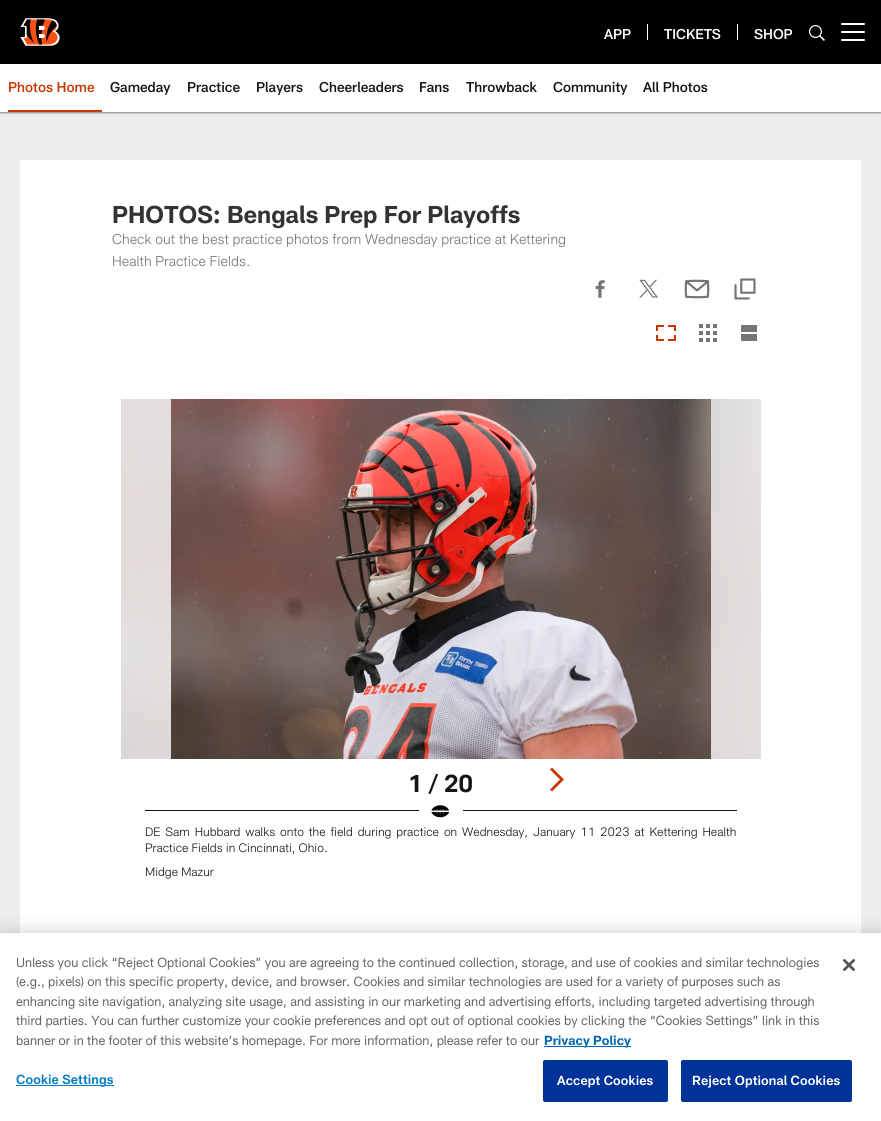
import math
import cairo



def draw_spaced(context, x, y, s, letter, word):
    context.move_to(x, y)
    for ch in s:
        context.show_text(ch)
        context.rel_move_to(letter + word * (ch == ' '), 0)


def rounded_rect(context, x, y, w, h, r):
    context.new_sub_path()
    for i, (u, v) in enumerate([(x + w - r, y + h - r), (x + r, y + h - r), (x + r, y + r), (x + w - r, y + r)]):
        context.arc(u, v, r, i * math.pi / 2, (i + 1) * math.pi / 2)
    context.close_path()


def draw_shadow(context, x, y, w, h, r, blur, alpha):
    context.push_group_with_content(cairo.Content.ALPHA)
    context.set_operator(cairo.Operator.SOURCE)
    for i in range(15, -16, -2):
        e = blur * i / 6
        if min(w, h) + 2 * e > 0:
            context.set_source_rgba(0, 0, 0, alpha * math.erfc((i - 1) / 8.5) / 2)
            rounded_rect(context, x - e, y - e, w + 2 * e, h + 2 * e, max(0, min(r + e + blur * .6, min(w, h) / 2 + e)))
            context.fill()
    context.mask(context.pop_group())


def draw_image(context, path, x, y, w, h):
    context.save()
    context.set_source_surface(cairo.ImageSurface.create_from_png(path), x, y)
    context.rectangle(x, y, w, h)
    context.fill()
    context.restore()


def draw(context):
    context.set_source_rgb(238 / 255, 238 / 255, 238 / 255)
    context.paint()
    context.set_source_rgb(0, 0, 0)
    context.rectangle(0, 0, 881, 64)
    context.fill()
    draw_image(context, "images/1.png", 20, 18, 40, 28)
    context.set_source_rgb(1, 1, 1)
    context.rectangle(647, 24, 1, 16)
    context.fill()
    context.rectangle(737, 24, 1, 16)
    context.fill()
    draw_image(context, "images/2.png", 809, 25, 16, 16)
    rounded_rect(context, 841, 31, 24, 2, 1)
    context.fill()
    rounded_rect(context, 841, 23, 24, 2, 1)
    context.fill()
    rounded_rect(context, 841, 39, 24, 2, 1)
    context.fill()
    context.set_source_rgb(0, 0, 0)
    draw_shadow(context, 0, 65, 881, 48, 0, 1, 0.47)
    context.set_source_rgb(1, 1, 1)
    context.rectangle(0, 64, 881, 48)
    context.fill()
    context.set_source_rgb(201 / 255, 54 / 255, 3 / 255)
    context.rectangle(8, 110, 94, 2)
    context.fill()
    context.set_source_rgb(1, 1, 1)
    context.rectangle(20, 160, 841, 773)
    context.fill()
    draw_image(context, "images/3.png", 595, 280, 10, 18)
    draw_image(context, "images/4.png", 639, 279, 19, 19)
    draw_image(context, "images/5.png", 684, 279, 26, 20)
    draw_image(context, "images/6.png", 734, 278, 22, 22)
    draw_image(context, "images/7.png", 656, 325, 20, 16)
    draw_image(context, "images/8.png", 699, 324, 18, 18)
    context.set_source_rgb(117 / 255, 117 / 255, 117 / 255)
    context.rectangle(741, 325, 16, 7)
    context.fill()
    context.rectangle(741, 334, 16, 7)
    context.fill()
    context.set_source_rgb(201 / 255, 54 / 255, 3 / 255)
    context.new_path()
    context.move_to(560, 779.5)
    context.line_to(550, 769.5)
    context.line_to(552, 767.5)
    context.line_to(564, 779.5)
    context.line_to(552, 791.5)
    context.line_to(550, 789.5)
    context.line_to(551, 788.5)
    context.close_path()
    context.fill()
    draw_image(context, "images/9.png", 121, 399, 640, 360)
    context.set_source_rgb(21 / 255, 21 / 255, 21 / 255)
    context.rectangle(145, 810, 274, 1)
    context.fill()
    draw_image(context, "images/10.png", 431, 805, 19, 13)
    context.rectangle(463, 810, 274, 1)
    context.fill()
    context.set_source_rgb(0, 0, 0)
    draw_shadow(context, 0, 933, 881, 188, 0, 9, 0.2)
    context.set_source_rgb(1, 1, 1)
    context.rectangle(0, 933, 881, 188)
    context.fill()
    context.set_source_rgb(0, 103 / 255, 177 / 255)
    context.rectangle(544, 1046, 87, 1)
    context.fill()
    context.set_source_rgb(0, 125 / 255, 195 / 255)
    context.rectangle(16, 1085, 98, 1)
    context.fill()
    context.set_source_rgb(0, 51 / 255, 153 / 255)
    rounded_rect(context, 543.5, 1060.5, 124, 41, 1.5)
    context.fill_preserve()
    context.set_line_width(1)
    context.stroke()
    rounded_rect(context, 681.5, 1060.5, 170, 41, 1.5)
    context.fill_preserve()
    context.stroke()
    draw_image(context, "images/11.png", 843, 959, 12, 12)
    context.select_font_face("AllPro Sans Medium")
    context.set_font_size(14)
    context.set_source_rgb(1, 1, 1)
    context.move_to(604, 39)
    context.show_text("APP")
    context.move_to(664, 39)
    context.show_text("TICKETS")
    context.move_to(754, 39)
    context.show_text("SHOP")
    context.set_source_rgb(201 / 255, 54 / 255, 3 / 255)
    context.move_to(8, 92)
    context.show_text("Photos Home")
    context.set_source_rgb(21 / 255, 21 / 255, 21 / 255)
    context.move_to(110, 92)
    context.show_text("Gameday")
    context.move_to(187, 92)
    context.show_text("Practice")
    context.move_to(256, 92)
    context.show_text("Players")
    context.move_to(319, 92)
    context.show_text("Cheerleaders")
    context.move_to(419, 92)
    context.show_text("Fans")
    context.move_to(466, 92)
    context.show_text("Throwback")
    context.move_to(553, 92)
    context.show_text("Community")
    context.move_to(643, 92)
    context.show_text("All Photos")
    context.select_font_face("AllPro Sans", cairo.FontSlant.NORMAL, cairo.FontWeight.BOLD)
    context.set_font_size(24)
    context.set_source_rgb(51 / 255, 51 / 255, 51 / 255)
    context.move_to(112, 223)
    context.show_text("PHOTOS: Bengals Prep For Playoffs")
    context.select_font_face("AllPro Sans Light")
    context.set_font_size(14)
    context.set_source_rgb(117 / 255, 117 / 255, 117 / 255)
    context.move_to(112, 244)
    context.show_text("Check out the best practice photos from Wednesday practice at Kettering")
    context.move_to(112, 266)
    context.show_text("Health Practice Fields.")
    context.select_font_face("AllPro Sans", cairo.FontSlant.NORMAL, cairo.FontWeight.BOLD)
    context.set_font_size(24)
    context.set_source_rgb(21 / 255, 21 / 255, 21 / 255)
    context.move_to(408, 792)
    context.show_text("1 / 20")
    context.select_font_face("AllPro Sans Light")
    context.set_font_size(12)
    draw_spaced(context, 145, 836, "DE Sam Hubbard walks onto the field during practice on Wednesday, January 11 2023 at Kettering Health", 0, 1.75)
    context.move_to(145, 852)
    context.show_text("Practice Fields in Cincinnati, Ohio.")
    context.move_to(145, 876)
    context.show_text("Midge Mazur")
    context.select_font_face("AllPro Sans")
    context.set_font_size(13)
    context.set_source_rgb(102 / 255, 102 / 255, 102 / 255)
    context.move_to(16, 967)
    context.show_text("Unless you click “Reject Optional Cookies” you are agreeing to the continued collection, storage, and use of cookies and similar technologies")
    context.move_to(16, 986)
    context.show_text("(e.g., pixels) on this specific property, device, and browser. Cookies and similar technologies are used for a variety of purposes such as")
    context.move_to(16, 1006)
    context.show_text("enhancing site navigation, analyzing site usage, and assisting in our marketing and advertising efforts, including targeted advertising through")
    context.move_to(16, 1025)
    context.show_text("third parties. You can further customize your cookie preferences and opt out of optional cookies by clicking the “Cookies Settings” link in this")
    context.move_to(16, 1045)
    context.show_text("banner or in the footer of this website’s homepage. For more information, please refer to our")
    context.select_font_face("AllPro Sans", cairo.FontSlant.NORMAL, cairo.FontWeight.BOLD)
    context.set_source_rgb(0, 103 / 255, 177 / 255)
    context.move_to(544, 1045)
    context.show_text("Privacy Policy")
    context.select_font_face("AllPro Sans SemiBold")
    context.set_source_rgb(0, 125 / 255, 195 / 255)
    draw_spaced(context, 16, 1084, "Cookie Settings", 0.1, 0)
    context.set_source_rgb(1, 1, 1)
    draw_spaced(context, 557, 1085, "Accept Cookies", 0.1, 0)
    draw_spaced(context, 692, 1085, "Reject Optional Cookies", 0.1, 0)


surface = cairo.ImageSurface(cairo.Format.RGB24, 881, 1121)
context = cairo.Context(surface)
options = cairo.FontOptions()
options.set_hint_metrics(cairo.HintMetrics.OFF)
options.set_hint_style(cairo.HintStyle.NONE)
context.set_font_options(options)
context.set_miter_limit(4)
draw(context)
surface.write_to_png("out.png")
